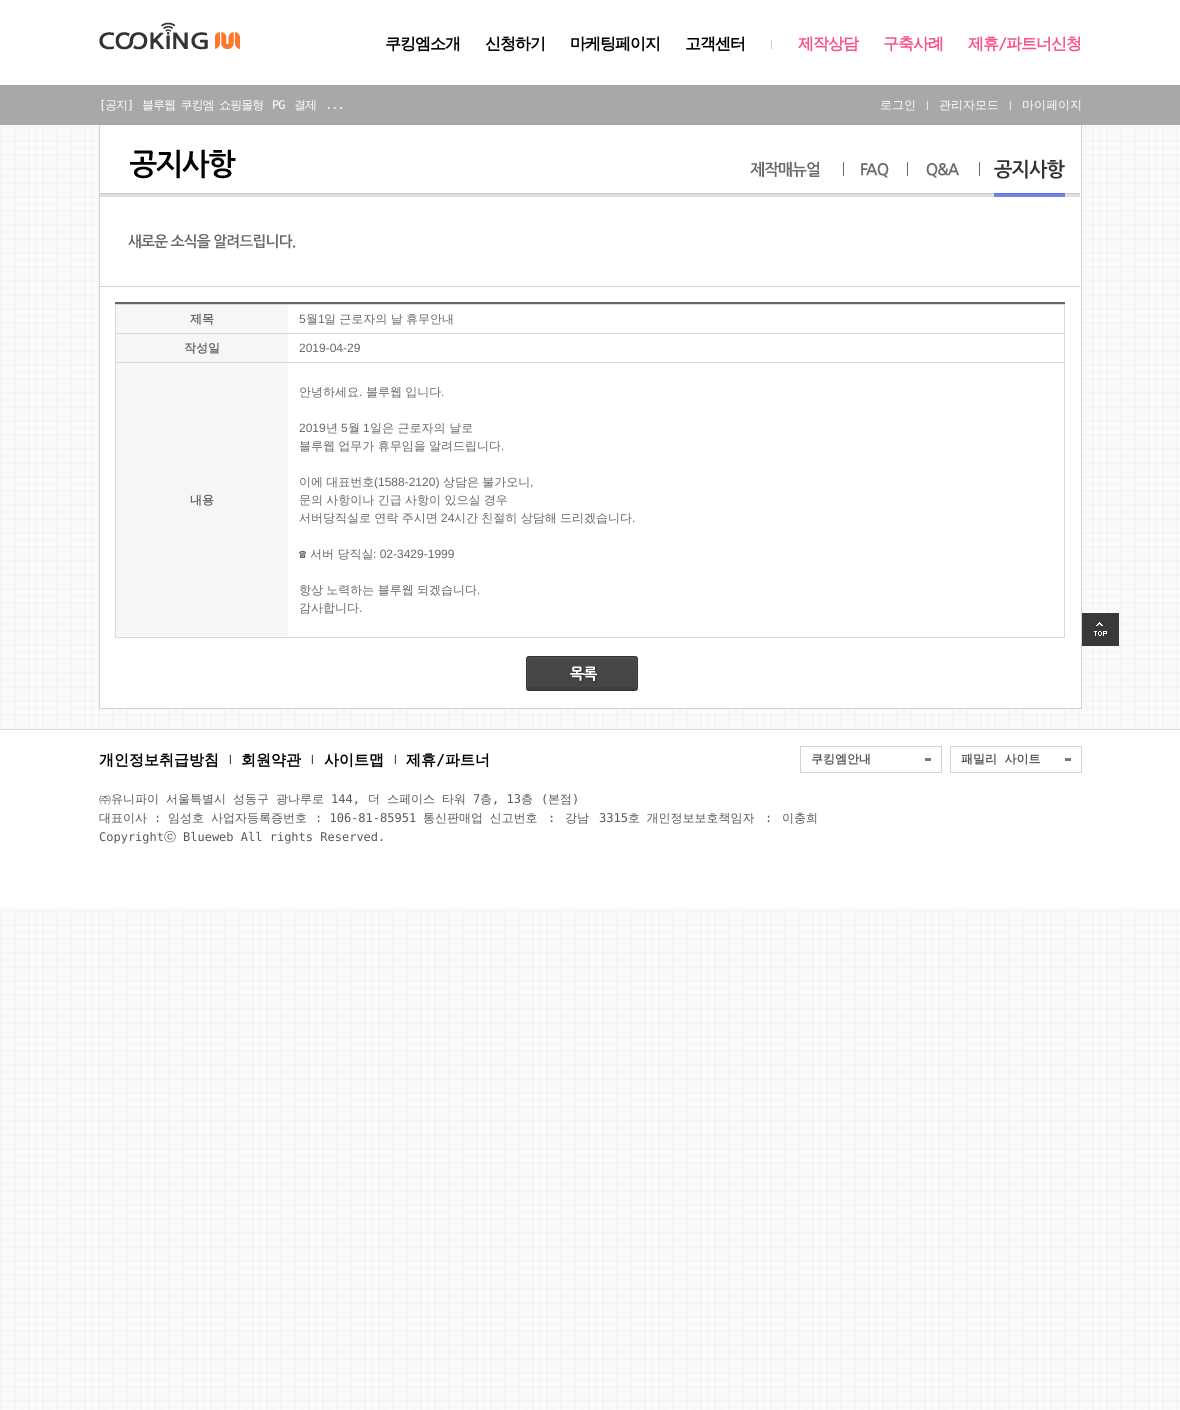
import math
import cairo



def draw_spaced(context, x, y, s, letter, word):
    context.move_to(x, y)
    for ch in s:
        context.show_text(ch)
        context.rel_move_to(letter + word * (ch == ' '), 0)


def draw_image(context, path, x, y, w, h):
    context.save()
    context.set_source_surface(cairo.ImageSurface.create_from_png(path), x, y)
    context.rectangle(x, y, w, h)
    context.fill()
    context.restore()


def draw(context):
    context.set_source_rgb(1, 1, 1)
    context.paint()
    draw_image(context, "images/1.png", 0, 125, 1180, 1285)
    context.set_source_rgb(1, 1, 1)
    context.rectangle(100, 125, 981, 583)
    context.fill()
    context.rectangle(99.5, 0.5, 982, 708)
    context.set_source_rgb(209 / 255, 209 / 255, 209 / 255)
    context.set_line_width(1)
    context.stroke()
    context.set_source_rgb(1, 1, 1)
    context.rectangle(99, 0, 983, 85)
    context.fill()
    draw_image(context, "images/2.png", 99, 22, 141, 28)
    context.set_source_rgb(168 / 255, 168 / 255, 168 / 255)
    context.rectangle(0, 85, 1180, 40)
    context.fill()
    draw_image(context, "images/3.png", 100, 193, 200, 4)
    draw_image(context, "images/4.png", 130, 149, 106, 30)
    draw_image(context, "images/5.png", 300, 193, 780, 4)
    draw_image(context, "images/6.png", 750, 161, 70, 16)
    draw_image(context, "images/7.png", 843, 162, 46, 16)
    draw_image(context, "images/8.png", 907, 162, 52, 16)
    draw_image(context, "images/9.png", 979, 159, 86, 38)
    context.set_source_rgb(209 / 255, 209 / 255, 209 / 255)
    context.rectangle(100, 286, 980, 1)
    context.fill()
    draw_image(context, "images/10.png", 128, 234, 168, 15)
    context.set_source_rgb(102 / 255, 102 / 255, 102 / 255)
    context.rectangle(115, 302, 950, 2)
    context.fill()
    context.set_source_rgb(217 / 255, 217 / 255, 217 / 255)
    context.rectangle(115, 304, 950, 334)
    context.fill()
    context.set_source_rgb(1, 1, 1)
    context.rectangle(288, 305, 776, 28)
    context.fill()
    context.set_source_rgb(246 / 255, 246 / 255, 246 / 255)
    context.rectangle(116, 305, 172, 28)
    context.fill()
    context.set_source_rgb(1, 1, 1)
    context.rectangle(288, 334, 776, 28)
    context.fill()
    context.set_source_rgb(246 / 255, 246 / 255, 246 / 255)
    context.rectangle(116, 334, 172, 28)
    context.fill()
    context.set_source_rgb(1, 1, 1)
    context.rectangle(288, 363, 776, 274)
    context.fill()
    context.set_source_rgb(246 / 255, 246 / 255, 246 / 255)
    context.rectangle(116, 363, 172, 274)
    context.fill()
    draw_image(context, "images/11.png", 526, 656, 112, 35)
    draw_image(context, "images/12.png", 1082, 613, 37, 33)
    context.set_source_rgb(1, 1, 1)
    context.rectangle(0, 730, 1180, 178)
    context.fill()
    context.set_source_rgb(220 / 255, 220 / 255, 220 / 255)
    context.rectangle(0, 729, 1180, 1)
    context.fill()
    context.rectangle(800.5, 746.5, 141, 26)
    context.set_source_rgb(211 / 255, 211 / 255, 211 / 255)
    context.stroke()
    context.set_source_rgb(121 / 255, 121 / 255, 121 / 255)
    context.rectangle(925, 758, 6, 3)
    context.fill()
    context.rectangle(950.5, 746.5, 131, 26)
    context.set_source_rgb(211 / 255, 211 / 255, 211 / 255)
    context.stroke()
    context.set_source_rgb(121 / 255, 121 / 255, 121 / 255)
    context.rectangle(1065, 758, 6, 3)
    context.fill()
    context.select_font_face("WenQuanYi Zen Hei", cairo.FontSlant.NORMAL, cairo.FontWeight.BOLD)
    context.set_font_size(16)
    context.set_source_rgb(0, 0, 0)
    draw_spaced(context, 385, 49, "쿠킹엠소개", -1, 0)
    draw_spaced(context, 485, 49, "신청하기", -1, 0)
    draw_spaced(context, 570, 49, "마케팅페이지", -1, 0)
    draw_spaced(context, 685, 49, "고객센터", -1, 0)
    context.select_font_face("Liberation Sans")
    context.set_font_size(10)
    context.set_source_rgb(188 / 255, 188 / 255, 188 / 255)
    context.move_to(770, 47)
    context.show_text("|")
    context.select_font_face("WenQuanYi Zen Hei", cairo.FontSlant.NORMAL, cairo.FontWeight.BOLD)
    context.set_font_size(16)
    context.set_source_rgb(246 / 255, 82 / 255, 137 / 255)
    draw_spaced(context, 798, 49, "제작상담", -1, 0)
    draw_spaced(context, 883, 49, "구축사례", -1, 0)
    draw_spaced(context, 968, 49, "제휴", -1, 0)
    context.select_font_face("DejaVu Sans Mono", cairo.FontSlant.NORMAL, cairo.FontWeight.BOLD)
    draw_spaced(context, 998, 49, "/", -1, 0)
    context.select_font_face("WenQuanYi Zen Hei", cairo.FontSlant.NORMAL, cairo.FontWeight.BOLD)
    draw_spaced(context, 1006, 49, "파트너신청", -1, 0)
    context.select_font_face("DejaVu Sans Mono")
    context.set_font_size(12)
    context.set_source_rgb(1, 1, 1)
    draw_spaced(context, 99, 109, "[", -1, 0)
    context.select_font_face("WenQuanYi Zen Hei Medium")
    draw_spaced(context, 105, 109, "공지", -1, 0)
    context.select_font_face("DejaVu Sans Mono")
    draw_spaced(context, 127, 109, "]", -1, 0)
    context.select_font_face("WenQuanYi Zen Hei Medium")
    draw_spaced(context, 142, 109, "블루웹 쿠킹엠 쇼핑몰형", -1, 3)
    context.select_font_face("DejaVu Sans Mono")
    draw_spaced(context, 272, 109, "PG", -1, 0)
    context.select_font_face("WenQuanYi Zen Hei Medium")
    draw_spaced(context, 294, 109, "결제", -1, 0)
    context.select_font_face("DejaVu Sans Mono")
    draw_spaced(context, 325, 109, "...", -1, 0)
    context.select_font_face("WenQuanYi Zen Hei Medium")
    context.move_to(880, 109)
    context.show_text("로그인")
    context.select_font_face("Liberation Sans")
    context.set_font_size(10)
    context.move_to(926, 108)
    context.show_text("|")
    context.select_font_face("WenQuanYi Zen Hei Medium")
    context.set_font_size(12)
    context.move_to(939, 109)
    context.show_text("관리자모드")
    context.select_font_face("Liberation Sans")
    context.set_font_size(10)
    context.move_to(1009, 108)
    context.show_text("|")
    context.select_font_face("WenQuanYi Zen Hei Medium")
    context.set_font_size(12)
    context.move_to(1022, 109)
    context.show_text("마이페이지")
    context.select_font_face("WenQuanYi Zen Hei", cairo.FontSlant.NORMAL, cairo.FontWeight.BOLD)
    context.set_source_rgb(102 / 255, 102 / 255, 102 / 255)
    context.move_to(190, 323)
    context.show_text("제목")
    context.select_font_face("Liberation Sans")
    context.move_to(299, 323)
    context.show_text("5")
    context.select_font_face("WenQuanYi Zen Hei Medium")
    context.move_to(306, 323)
    context.show_text("월")
    context.select_font_face("Liberation Sans")
    context.move_to(318, 323)
    context.show_text("1")
    context.select_font_face("WenQuanYi Zen Hei Medium")
    draw_spaced(context, 324, 323, "일 근로자의 날 휴무안내", 0, -0.25)
    context.select_font_face("WenQuanYi Zen Hei", cairo.FontSlant.NORMAL, cairo.FontWeight.BOLD)
    context.move_to(184, 352)
    context.show_text("작성일")
    context.select_font_face("Liberation Sans")
    context.move_to(299, 352)
    context.show_text("2019-04-29")
    context.select_font_face("WenQuanYi Zen Hei", cairo.FontSlant.NORMAL, cairo.FontWeight.BOLD)
    context.move_to(190, 504)
    context.show_text("내용")
    context.select_font_face("WenQuanYi Zen Hei Medium")
    context.move_to(299, 396)
    context.show_text("안녕하세요")
    context.select_font_face("Liberation Sans")
    context.move_to(359, 396)
    context.show_text(".")
    context.select_font_face("WenQuanYi Zen Hei Medium")
    draw_spaced(context, 366, 396, "블루웹 입니다", 0, -0.25)
    context.select_font_face("Liberation Sans")
    context.move_to(441, 396)
    context.show_text(".")
    context.move_to(299, 432)
    context.show_text("2019")
    context.select_font_face("WenQuanYi Zen Hei Medium")
    context.move_to(326, 432)
    context.show_text("년")
    context.select_font_face("Liberation Sans")
    context.move_to(341, 432)
    context.show_text("5")
    context.select_font_face("WenQuanYi Zen Hei Medium")
    context.move_to(348, 432)
    context.show_text("월")
    context.select_font_face("Liberation Sans")
    context.move_to(363, 432)
    context.show_text("1")
    context.select_font_face("WenQuanYi Zen Hei Medium")
    context.move_to(370, 432)
    context.show_text("일은 근로자의 날로")
    draw_spaced(context, 299, 450, "블루웹 업무가 휴무임을 알려드립니다", 0, -0.25)
    context.select_font_face("Liberation Sans")
    context.move_to(501, 450)
    context.show_text(".")
    context.select_font_face("WenQuanYi Zen Hei Medium")
    draw_spaced(context, 299, 486, "이에 대표번호", 0, -0.25)
    context.select_font_face("Liberation Sans")
    context.move_to(374, 486)
    context.show_text("(1588-2120)")
    context.select_font_face("WenQuanYi Zen Hei Medium")
    draw_spaced(context, 443, 486, "상담은 불가오니", 0, -0.25)
    context.select_font_face("Liberation Sans")
    context.move_to(530, 486)
    context.show_text(",")
    context.select_font_face("WenQuanYi Zen Hei Medium")
    draw_spaced(context, 299, 504, "문의 사항이나 긴급 사항이 있으실 경우", 0, -0.25)
    draw_spaced(context, 299, 522, "서버당직실로 연락 주시면", 0, -0.25)
    context.select_font_face("Liberation Sans")
    context.move_to(441, 522)
    context.show_text("24")
    context.select_font_face("WenQuanYi Zen Hei Medium")
    draw_spaced(context, 454, 522, "시간 친절히 상담해 드리겠습니다", 0, -0.25)
    context.select_font_face("Liberation Sans")
    context.move_to(632, 522)
    context.show_text(".")
    context.select_font_face("DejaVu Sans Mono")
    context.move_to(299, 558)
    context.show_text("☎")
    context.select_font_face("WenQuanYi Zen Hei Medium")
    context.move_to(310, 558)
    context.show_text("서버 당직실")
    context.select_font_face("Liberation Sans")
    context.move_to(373, 558)
    context.show_text(": 02-3429-1999")
    context.select_font_face("WenQuanYi Zen Hei Medium")
    draw_spaced(context, 299, 594, "항상 노력하는 블루웹 되겠습니다", 0, -0.25)
    context.select_font_face("Liberation Sans")
    context.move_to(477, 594)
    context.show_text(".")
    context.select_font_face("WenQuanYi Zen Hei Medium")
    context.move_to(299, 612)
    context.show_text("감사합니다")
    context.select_font_face("Liberation Sans")
    context.move_to(359, 612)
    context.show_text(".")
    context.select_font_face("WenQuanYi Zen Hei", cairo.FontSlant.NORMAL, cairo.FontWeight.BOLD)
    context.set_font_size(15)
    context.set_source_rgb(0, 0, 0)
    context.move_to(99, 765)
    context.show_text("개인정보취급방침")
    context.select_font_face("Liberation Sans")
    context.set_font_size(10)
    context.move_to(229, 762)
    context.show_text("|")
    context.select_font_face("WenQuanYi Zen Hei", cairo.FontSlant.NORMAL, cairo.FontWeight.BOLD)
    context.set_font_size(15)
    context.move_to(241, 765)
    context.show_text("회원약관")
    context.select_font_face("Liberation Sans")
    context.set_font_size(10)
    context.move_to(311, 762)
    context.show_text("|")
    context.select_font_face("WenQuanYi Zen Hei", cairo.FontSlant.NORMAL, cairo.FontWeight.BOLD)
    context.set_font_size(15)
    context.move_to(324, 765)
    context.show_text("사이트맵")
    context.select_font_face("Liberation Sans")
    context.set_font_size(10)
    context.move_to(394, 762)
    context.show_text("|")
    context.select_font_face("WenQuanYi Zen Hei", cairo.FontSlant.NORMAL, cairo.FontWeight.BOLD)
    context.set_font_size(15)
    context.move_to(406, 765)
    context.show_text("제휴")
    context.select_font_face("DejaVu Sans Mono", cairo.FontSlant.NORMAL, cairo.FontWeight.BOLD)
    context.move_to(436, 765)
    context.show_text("/")
    context.select_font_face("WenQuanYi Zen Hei", cairo.FontSlant.NORMAL, cairo.FontWeight.BOLD)
    context.move_to(445, 765)
    context.show_text("파트너")
    context.select_font_face("WenQuanYi Zen Hei Medium")
    context.set_font_size(12)
    context.set_source_rgb(87 / 255, 87 / 255, 87 / 255)
    context.move_to(99, 803)
    context.show_text("㈜유니파이")
    context.move_to(166, 803)
    context.show_text("서울특별시")
    context.move_to(233, 803)
    context.show_text("성동구")
    context.move_to(276, 803)
    context.show_text("광나루로")
    context.select_font_face("DejaVu Sans Mono")
    context.move_to(331, 803)
    context.show_text("144,")
    context.select_font_face("WenQuanYi Zen Hei Medium")
    context.move_to(368, 803)
    context.show_text("더")
    context.move_to(387, 803)
    context.show_text("스페이스")
    context.move_to(442, 803)
    context.show_text("타워")
    context.select_font_face("DejaVu Sans Mono")
    context.move_to(473, 803)
    context.show_text("7")
    context.select_font_face("WenQuanYi Zen Hei Medium")
    context.move_to(480, 803)
    context.show_text("층")
    context.select_font_face("DejaVu Sans Mono")
    context.move_to(492, 803)
    context.show_text(", 13")
    context.select_font_face("WenQuanYi Zen Hei Medium")
    context.move_to(521, 803)
    context.show_text("층")
    context.select_font_face("DejaVu Sans Mono")
    context.move_to(541, 803)
    context.show_text("(")
    context.select_font_face("WenQuanYi Zen Hei Medium")
    context.move_to(548, 803)
    context.show_text("본점")
    context.select_font_face("DejaVu Sans Mono")
    context.move_to(572, 803)
    context.show_text(")")
    context.select_font_face("WenQuanYi Zen Hei Medium")
    context.move_to(99, 822)
    context.show_text("대표이사")
    context.select_font_face("DejaVu Sans Mono")
    context.move_to(154, 822)
    context.show_text(":")
    context.select_font_face("WenQuanYi Zen Hei Medium")
    context.move_to(168, 822)
    context.show_text("임성호")
    context.move_to(211, 822)
    context.show_text("사업자등록증번호")
    context.select_font_face("DejaVu Sans Mono")
    context.move_to(315, 822)
    context.show_text(": 106-81-85951")
    context.select_font_face("WenQuanYi Zen Hei Medium")
    draw_spaced(context, 423, 822, "통신판매업 신고번호", 0, 3)
    context.select_font_face("DejaVu Sans Mono")
    context.move_to(548, 822)
    context.show_text(":")
    context.select_font_face("WenQuanYi Zen Hei Medium")
    context.move_to(565, 822)
    context.show_text("강남")
    context.select_font_face("DejaVu Sans Mono")
    context.move_to(599, 822)
    context.show_text("3315")
    context.select_font_face("WenQuanYi Zen Hei Medium")
    draw_spaced(context, 628, 822, "호 개인정보보호책임자", 0, 3)
    context.select_font_face("DejaVu Sans Mono")
    context.move_to(765, 822)
    context.show_text(":")
    context.select_font_face("WenQuanYi Zen Hei Medium")
    context.move_to(782, 822)
    context.show_text("이충희")
    context.select_font_face("DejaVu Sans Mono")
    context.move_to(99, 841)
    context.show_text("Copyright")
    context.select_font_face("WenQuanYi Zen Hei Medium")
    context.move_to(164, 841)
    context.show_text("ⓒ")
    context.select_font_face("DejaVu Sans Mono")
    context.move_to(183, 841)
    context.show_text("Blueweb All rights Reserved.")
    context.select_font_face("WenQuanYi Zen Hei", cairo.FontSlant.NORMAL, cairo.FontWeight.BOLD)
    context.move_to(811, 763)
    context.show_text("쿠킹엠안내")
    draw_spaced(context, 961, 763, "패밀리 사이트", 0, 4)


surface = cairo.ImageSurface(cairo.Format.RGB24, 1180, 1410)
context = cairo.Context(surface)
options = cairo.FontOptions()
options.set_hint_metrics(cairo.HintMetrics.OFF)
options.set_hint_style(cairo.HintStyle.NONE)
context.set_font_options(options)
context.set_miter_limit(4)
draw(context)
surface.write_to_png("out.png")
